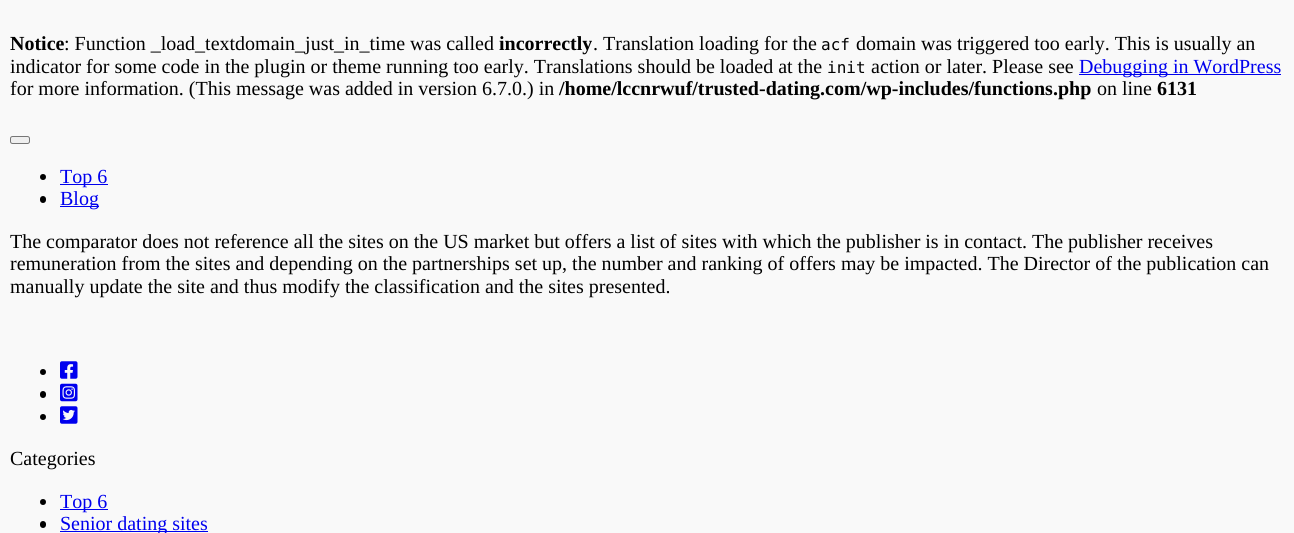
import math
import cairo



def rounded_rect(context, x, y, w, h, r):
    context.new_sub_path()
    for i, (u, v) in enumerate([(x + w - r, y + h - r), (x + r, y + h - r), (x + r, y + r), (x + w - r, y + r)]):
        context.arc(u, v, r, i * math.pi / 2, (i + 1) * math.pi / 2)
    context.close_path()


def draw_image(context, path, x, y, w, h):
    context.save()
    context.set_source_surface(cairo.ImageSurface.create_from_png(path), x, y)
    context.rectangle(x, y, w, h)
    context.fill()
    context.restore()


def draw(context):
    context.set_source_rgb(249 / 255, 249 / 255, 249 / 255)
    context.paint()
    context.set_source_rgb(0, 0, 238 / 255)
    context.rectangle(1079, 74, 202, 1)
    context.fill()
    context.set_source_rgb(239 / 255, 239 / 255, 239 / 255)
    rounded_rect(context, 10.5, 136.5, 19, 7, 2)
    context.fill_preserve()
    context.set_source_rgb(118 / 255, 118 / 255, 118 / 255)
    context.set_line_width(1)
    context.stroke()
    context.set_source_rgb(0, 0, 0)
    context.arc(43, 177, 3, 0, 2 * math.pi)
    context.fill()
    context.set_source_rgb(0, 0, 238 / 255)
    context.rectangle(60, 184, 48, 1)
    context.fill()
    context.set_source_rgb(0, 0, 0)
    rounded_rect(context, 40, 196, 6, 7, 3)
    context.fill()
    context.set_source_rgb(0, 0, 238 / 255)
    context.rectangle(60, 206, 39, 1)
    context.fill()
    context.set_source_rgb(0, 0, 0)
    context.arc(43, 372, 3, 0, 2 * math.pi)
    context.fill()
    draw_image(context, "images/1.png", 60, 361, 18, 18)
    rounded_rect(context, 40, 391, 6, 7, 3)
    context.fill()
    draw_image(context, "images/2.png", 60, 383, 18, 19)
    context.arc(43, 417, 3, 0, 2 * math.pi)
    context.fill()
    draw_image(context, "images/3.png", 60, 406, 18, 18)
    context.arc(43, 502, 3, 0, 2 * math.pi)
    context.fill()
    context.set_source_rgb(0, 0, 238 / 255)
    context.rectangle(60, 509, 48, 1)
    context.fill()
    context.set_source_rgb(0, 0, 0)
    rounded_rect(context, 40, 521, 6, 7, 3)
    context.fill()
    context.set_source_rgb(0, 0, 238 / 255)
    context.rectangle(60, 531, 148, 1)
    context.fill()
    context.select_font_face("Liberation Serif", cairo.FontSlant.NORMAL, cairo.FontWeight.BOLD)
    context.set_font_size(20)
    context.set_source_rgb(0, 0, 0)
    context.move_to(10, 50)
    context.show_text("Notice")
    context.select_font_face("Liberation Serif")
    context.move_to(64, 50)
    context.show_text(": Function _load_textdomain_just_in_time was called")
    context.select_font_face("Liberation Serif", cairo.FontSlant.NORMAL, cairo.FontWeight.BOLD)
    context.move_to(499, 50)
    context.show_text("incorrectly")
    context.select_font_face("Liberation Serif")
    context.move_to(593, 50)
    context.show_text(". Translation loading for the")
    context.select_font_face("DejaVu Sans Mono")
    context.set_font_size(16)
    context.move_to(821, 50)
    context.show_text("acf")
    context.select_font_face("Liberation Serif")
    context.set_font_size(20)
    context.move_to(856, 50)
    context.show_text("domain was triggered too early. This is usually an")
    context.move_to(10, 73)
    context.show_text("indicator for some code in the plugin or theme running too early. Translations should be loaded at the")
    context.select_font_face("DejaVu Sans Mono")
    context.set_font_size(16)
    context.move_to(827, 73)
    context.show_text("init")
    context.select_font_face("Liberation Serif")
    context.set_font_size(20)
    context.move_to(871, 73)
    context.show_text("action or later. Please see")
    context.set_source_rgb(0, 0, 238 / 255)
    context.move_to(1079, 73)
    context.show_text("Debugging in WordPress")
    context.set_source_rgb(0, 0, 0)
    context.move_to(10, 95)
    context.show_text("for more information. (This message was added in version 6.7.0.) in")
    context.select_font_face("Liberation Serif", cairo.FontSlant.NORMAL, cairo.FontWeight.BOLD)
    context.move_to(559, 95)
    context.show_text("/home/lccnrwuf/trusted-dating.com/wp-includes/functions.php")
    context.select_font_face("Liberation Serif")
    context.move_to(1097, 95)
    context.show_text("on line")
    context.select_font_face("Liberation Serif", cairo.FontSlant.NORMAL, cairo.FontWeight.BOLD)
    context.move_to(1157, 95)
    context.show_text("6131")
    context.select_font_face("Liberation Serif")
    context.set_source_rgb(0, 0, 238 / 255)
    context.move_to(60, 183)
    context.show_text("Top 6")
    context.move_to(60, 205)
    context.show_text("Blog")
    context.set_source_rgb(0, 0, 0)
    context.move_to(10, 248)
    context.show_text("The comparator does not reference all the sites on the US market but offers a list of sites with which the publisher is in contact. The publisher receives")
    context.move_to(10, 270)
    context.show_text("remuneration from the sites and depending on the partnerships set up, the number and ranking of offers may be impacted. The Director of the publication can")
    context.move_to(10, 293)
    context.show_text("manually update the site and thus modify the classification and the sites presented.")
    context.move_to(10, 465)
    context.show_text("Categories")
    context.set_source_rgb(0, 0, 238 / 255)
    context.move_to(60, 508)
    context.show_text("Top 6")
    context.move_to(60, 530)
    context.show_text("Senior dating sites")


surface = cairo.ImageSurface(cairo.Format.RGB24, 1294, 533)
context = cairo.Context(surface)
options = cairo.FontOptions()
options.set_hint_metrics(cairo.HintMetrics.OFF)
options.set_hint_style(cairo.HintStyle.NONE)
context.set_font_options(options)
context.set_miter_limit(4)
draw(context)
surface.write_to_png("out.png")
